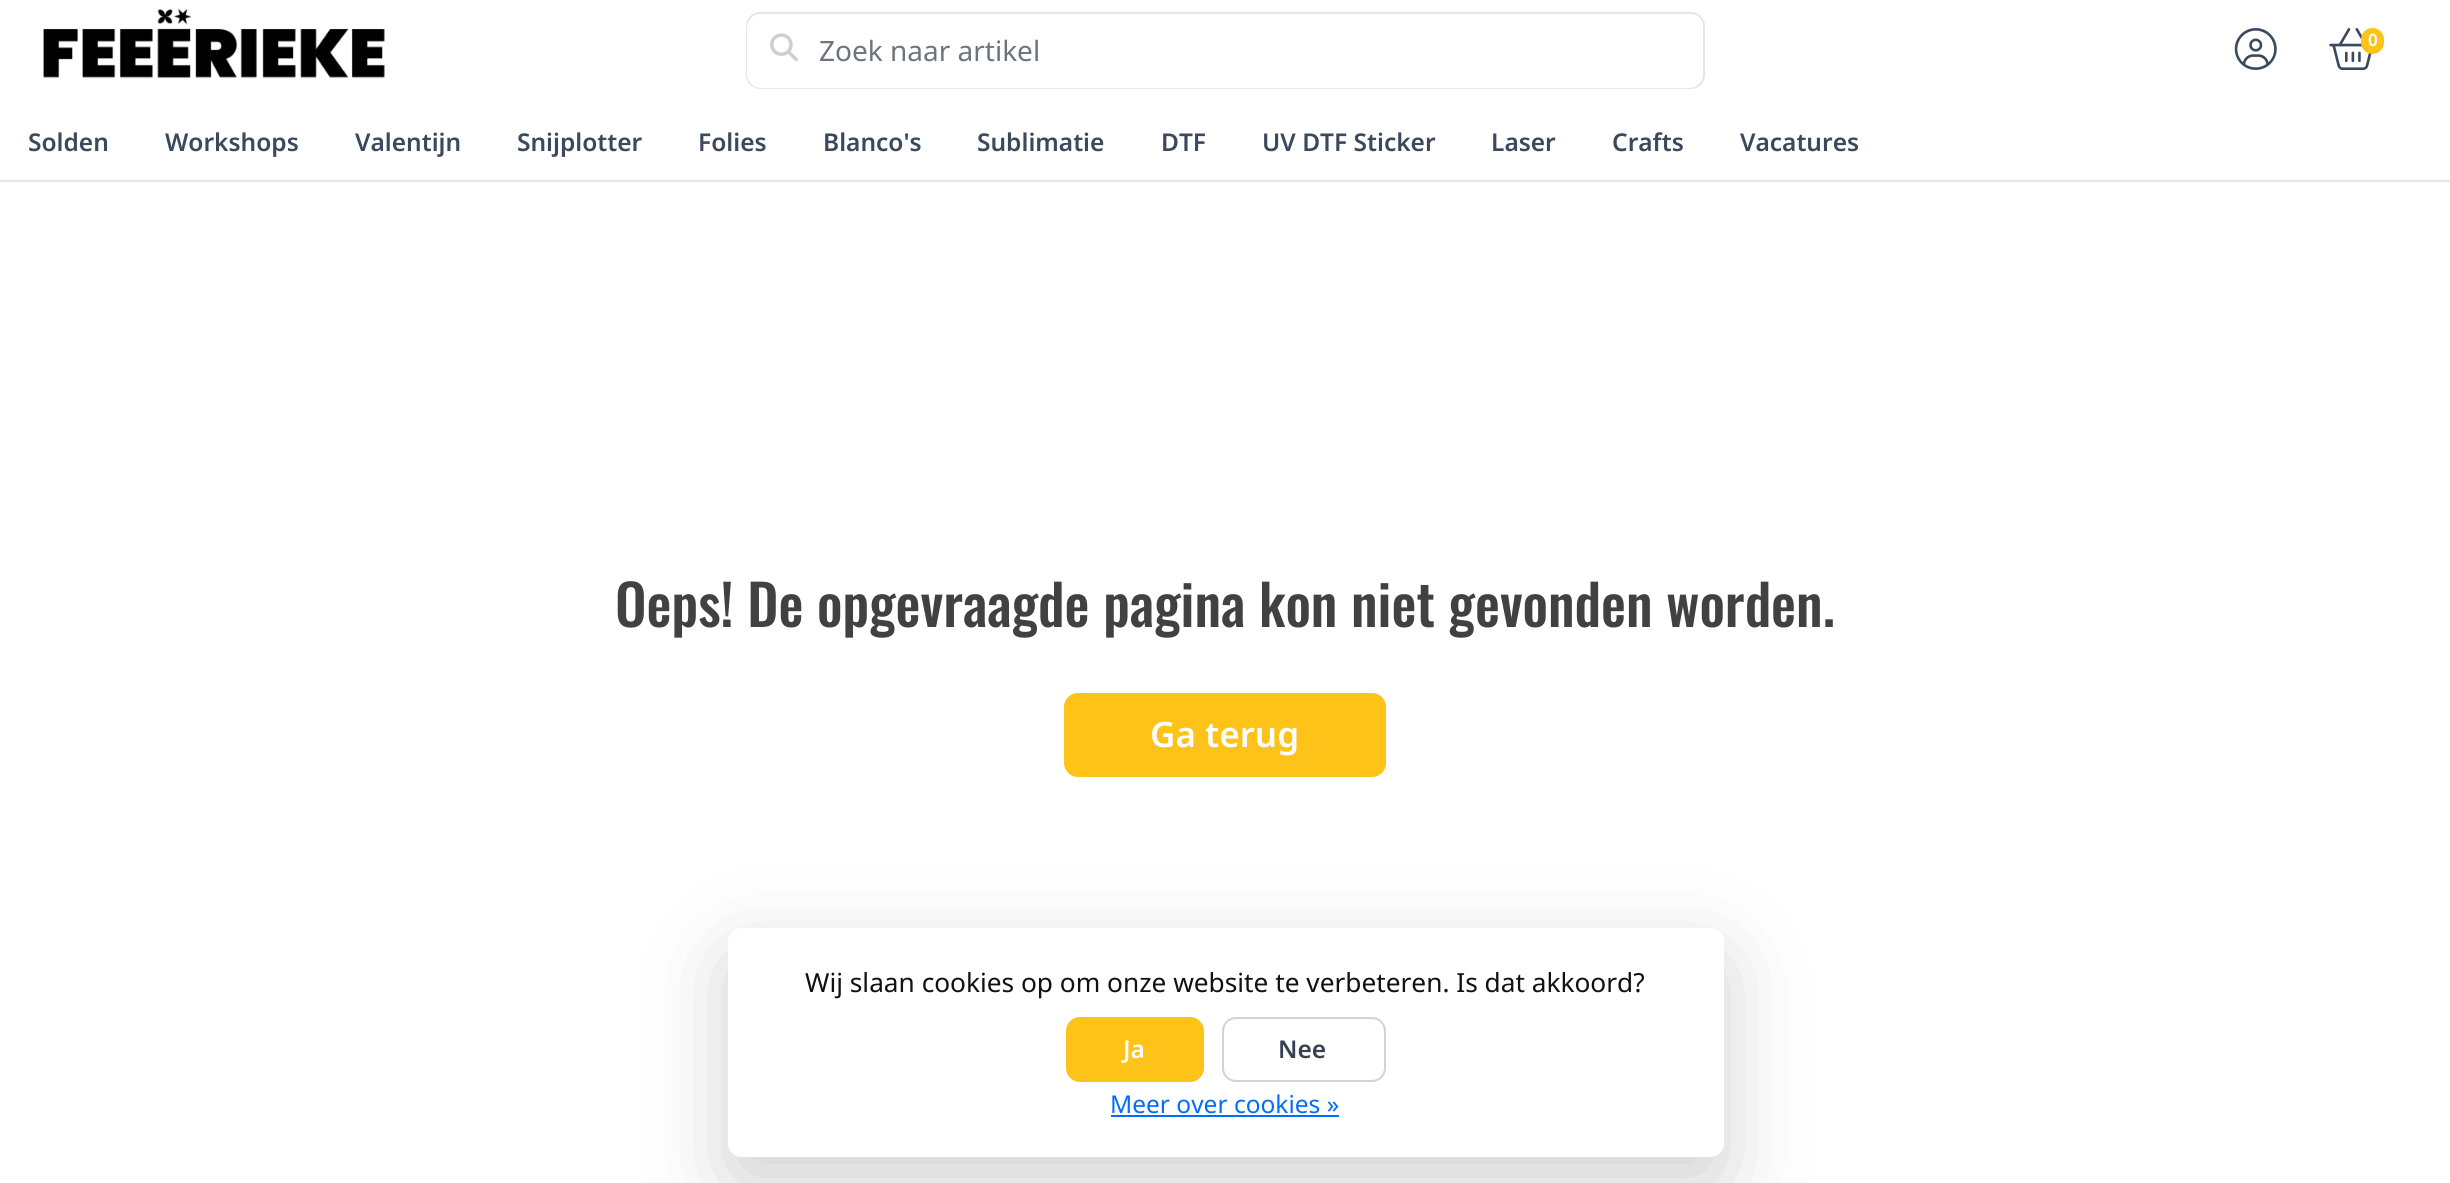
import math
import cairo



def draw_spaced(context, x, y, s, letter, word):
    context.move_to(x, y)
    for ch in s:
        context.show_text(ch)
        context.rel_move_to(letter + word * (ch == ' '), 0)


def rounded_rect(context, x, y, w, h, r):
    context.new_sub_path()
    for i, (u, v) in enumerate([(x + w - r, y + h - r), (x + r, y + h - r), (x + r, y + r), (x + w - r, y + r)]):
        context.arc(u, v, r, i * math.pi / 2, (i + 1) * math.pi / 2)
    context.close_path()


def draw_shadow(context, x, y, w, h, r, blur, alpha):
    context.push_group_with_content(cairo.Content.ALPHA)
    context.set_operator(cairo.Operator.SOURCE)
    for i in range(15, -16, -2):
        e = blur * i / 6
        if min(w, h) + 2 * e > 0:
            context.set_source_rgba(0, 0, 0, alpha * math.erfc((i - 1) / 8.5) / 2)
            rounded_rect(context, x - e, y - e, w + 2 * e, h + 2 * e, max(0, min(r + e + blur * .6, min(w, h) / 2 + e)))
            context.fill()
    context.mask(context.pop_group())


def draw_image(context, path, x, y, w, h):
    context.save()
    context.set_source_surface(cairo.ImageSurface.create_from_png(path), x, y)
    context.rectangle(x, y, w, h)
    context.fill()
    context.restore()


def draw(context):
    context.set_source_rgb(1, 1, 1)
    context.paint()
    draw_image(context, "images/1.png", 43, 8, 342, 71)
    rounded_rect(context, 747, 13, 957, 75, 13)
    context.set_source_rgb(230 / 255, 230 / 255, 230 / 255)
    context.stroke()
    context.set_source_rgb(1, 1, 1)
    rounded_rect(context, 747, 14, 956, 74, 14)
    context.fill()
    draw_image(context, "images/2.png", 770, 33, 28, 29)
    draw_image(context, "images/3.png", 2234, 28, 43, 42)
    draw_image(context, "images/4.png", 2329, 28, 43, 42)
    context.set_source_rgb(253 / 255, 195 / 255, 25 / 255)
    rounded_rect(context, 2361, 28, 23, 26, 11.5)
    context.fill()
    context.set_source_rgb(230 / 255, 230 / 255, 230 / 255)
    context.rectangle(0, 180, 2450, 2)
    context.fill()
    context.set_source_rgb(253 / 255, 195 / 255, 25 / 255)
    rounded_rect(context, 1065, 694, 320, 82, 13)
    context.fill_preserve()
    context.stroke()
    context.save()
    context.set_fill_rule(cairo.FillRule.EVEN_ODD)
    context.new_path()
    context.move_to(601, 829)
    context.line_to(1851, 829)
    context.line_to(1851, 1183)
    context.line_to(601, 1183)
    context.close_path()
    context.move_to(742, 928)
    context.line_to(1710, 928)
    context.curve_to(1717.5, 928, 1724, 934.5, 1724, 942)
    context.line_to(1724, 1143)
    context.curve_to(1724, 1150.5, 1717.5, 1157, 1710, 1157)
    context.line_to(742, 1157)
    context.curve_to(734.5, 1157, 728, 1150.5, 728, 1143)
    context.line_to(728, 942)
    context.curve_to(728, 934.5, 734.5, 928, 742, 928)
    context.close_path()
    context.clip()
    context.set_source_rgb(0, 0, 0)
    draw_shadow(context, 728, 956, 996, 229, 14, 42, 0.18)
    context.restore()
    context.set_source_rgba(1, 1, 1, 0.9)
    rounded_rect(context, 728, 928, 996, 229, 14)
    context.fill()
    context.set_source_rgb(253 / 255, 195 / 255, 25 / 255)
    rounded_rect(context, 1067, 1018, 136, 63, 13)
    context.fill_preserve()
    context.stroke()
    rounded_rect(context, 1223, 1018, 162, 63, 13)
    context.set_source_rgb(206 / 255, 212 / 255, 218 / 255)
    context.stroke()
    context.set_source_rgb(0, 109 / 255, 254 / 255)
    context.rectangle(1111, 1115, 228, 2)
    context.fill()
    context.select_font_face("Noto Sans")
    context.set_font_size(28)
    context.set_source_rgb(108 / 255, 117 / 255, 125 / 255)
    context.move_to(819, 61)
    context.show_text("Zoek naar artikel")
    context.select_font_face("Noto Sans SemiBold")
    context.set_font_size(17)
    context.set_source_rgb(1, 1, 1)
    draw_spaced(context, 2368, 46, "0", -1, 0)
    context.set_font_size(24.5)
    context.set_source_rgb(59 / 255, 73 / 255, 93 / 255)
    context.move_to(28, 151)
    context.show_text("Solden")
    context.move_to(165, 151)
    context.show_text("Workshops")
    context.move_to(355, 151)
    context.show_text("Valentijn")
    context.move_to(517, 151)
    context.show_text("Snijplotter")
    context.move_to(698, 151)
    context.show_text("Folies")
    context.move_to(823, 151)
    context.show_text("Blanco's")
    context.move_to(977, 151)
    context.show_text("Sublimatie")
    context.move_to(1161, 151)
    context.show_text("DTF")
    context.move_to(1262, 151)
    context.show_text("UV DTF Sticker")
    context.move_to(1491, 151)
    context.show_text("Laser")
    context.move_to(1612, 151)
    context.show_text("Crafts")
    context.move_to(1740, 151)
    context.show_text("Vacatures")
    context.select_font_face("Oswald Medium")
    context.set_font_size(56)
    context.set_source_rgb(65 / 255, 65 / 255, 65 / 255)
    context.move_to(615, 627)
    context.show_text("Oeps! De opgevraagde pagina kon niet gevonden worden.")
    context.select_font_face("Noto Sans SemiBold")
    context.set_font_size(35)
    context.set_source_rgb(1, 1, 1)
    context.move_to(1150, 747)
    context.show_text("Ga terug")
    context.select_font_face("Noto Sans")
    context.set_font_size(26.25)
    context.set_source_rgb(17 / 255, 17 / 255, 17 / 255)
    context.move_to(805, 992)
    context.show_text("Wij slaan cookies op om onze website te verbeteren. Is dat akkoord?")
    context.select_font_face("Noto Sans SemiBold")
    context.set_font_size(24.5)
    context.set_source_rgb(1, 1, 1)
    context.move_to(1123, 1058)
    context.show_text("Ja")
    context.set_source_rgb(55 / 255, 65 / 255, 81 / 255)
    context.move_to(1278, 1058)
    context.show_text("Nee")
    context.select_font_face("Noto Sans")
    context.set_source_rgb(0, 109 / 255, 254 / 255)
    context.move_to(1110, 1113)
    context.show_text("Meer over cookies »")


surface = cairo.ImageSurface(cairo.Format.RGB24, 2450, 1183)
context = cairo.Context(surface)
options = cairo.FontOptions()
options.set_hint_metrics(cairo.HintMetrics.OFF)
options.set_hint_style(cairo.HintStyle.NONE)
context.set_font_options(options)
context.set_miter_limit(4)
draw(context)
surface.write_to_png("out.png")
